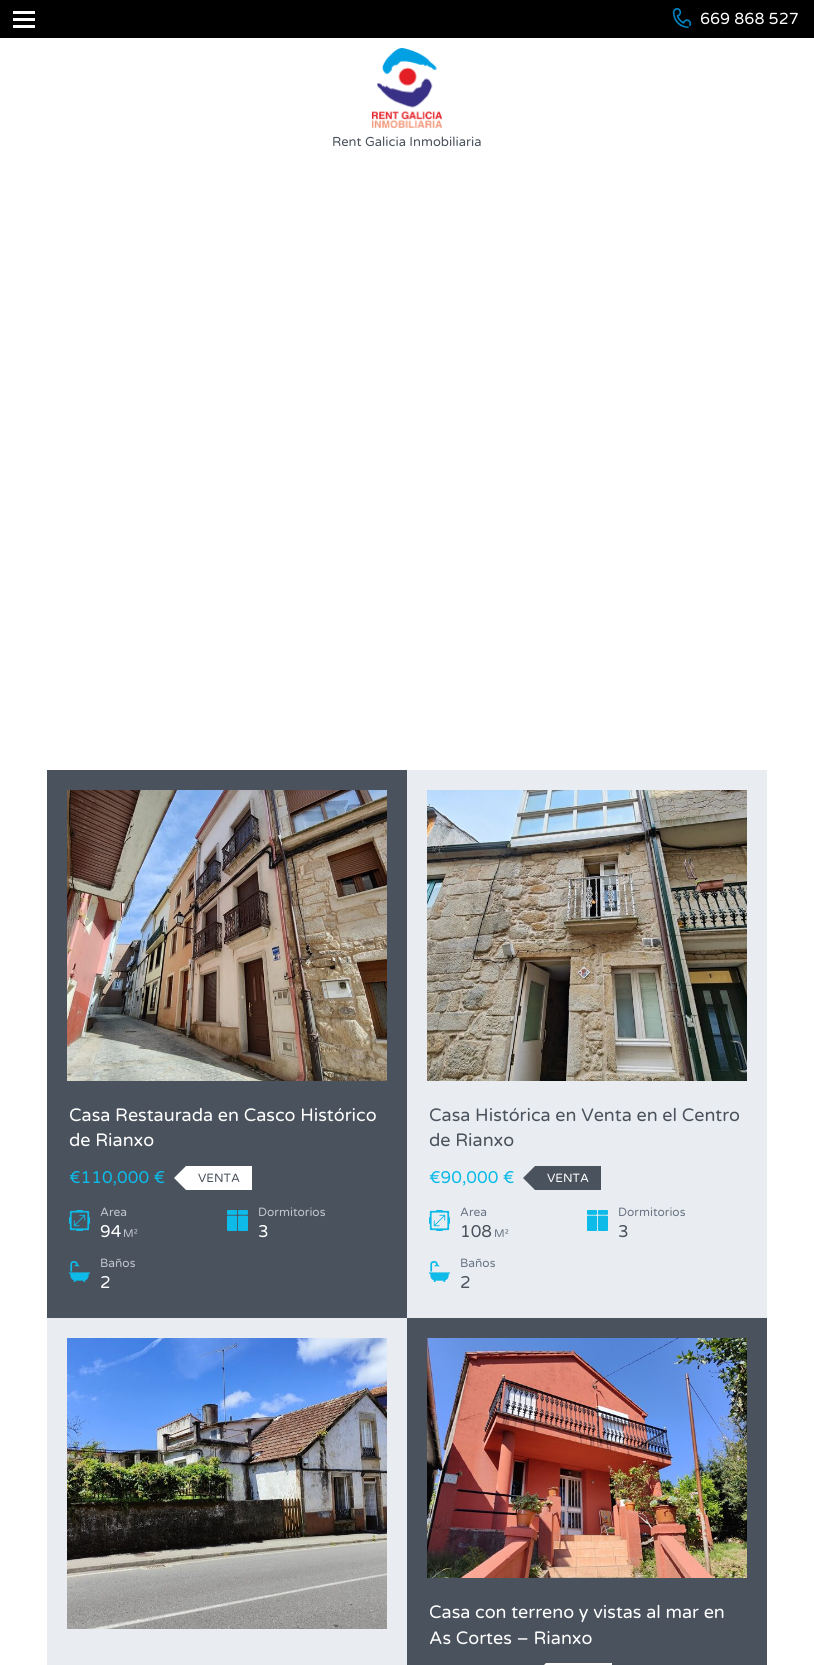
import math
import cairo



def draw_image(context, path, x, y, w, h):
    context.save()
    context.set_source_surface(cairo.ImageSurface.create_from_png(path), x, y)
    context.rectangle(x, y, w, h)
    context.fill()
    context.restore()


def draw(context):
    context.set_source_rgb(1, 1, 1)
    context.paint()
    context.set_source_rgb(0, 0, 0)
    context.rectangle(0, 0, 814, 38)
    context.fill()
    context.set_source_rgb(1, 1, 1)
    context.rectangle(13, 11, 22, 3)
    context.fill()
    context.rectangle(13, 18, 22, 3)
    context.fill()
    context.rectangle(13, 25, 22, 3)
    context.fill()
    draw_image(context, "images/1.png", 672, 8, 20, 20)
    draw_image(context, "images/2.png", 372, 48, 70, 80)
    context.set_source_rgb(74 / 255, 82 / 255, 93 / 255)
    context.rectangle(47, 770, 360, 548)
    context.fill()
    draw_image(context, "images/3.png", 67, 790, 320, 291)
    context.set_source_rgb(1, 1, 1)
    context.rectangle(186, 1166, 66, 24)
    context.fill()
    context.new_path()
    context.move_to(186, 1166)
    context.line_to(186, 1190)
    context.line_to(174, 1178)
    context.close_path()
    context.fill()
    draw_image(context, "images/4.png", 69, 1210, 21, 21)
    draw_image(context, "images/5.png", 227, 1210, 21, 21)
    draw_image(context, "images/6.png", 69, 1261, 21, 21)
    context.set_source_rgb(233 / 255, 237 / 255, 241 / 255)
    context.rectangle(407, 770, 360, 548)
    context.fill()
    draw_image(context, "images/7.png", 427, 790, 320, 291)
    context.set_source_rgb(74 / 255, 82 / 255, 93 / 255)
    context.rectangle(535, 1166, 66, 24)
    context.fill()
    context.new_path()
    context.move_to(535, 1166)
    context.line_to(535, 1190)
    context.line_to(523, 1178)
    context.close_path()
    context.fill()
    draw_image(context, "images/8.png", 429, 1210, 21, 21)
    draw_image(context, "images/9.png", 587, 1210, 21, 21)
    draw_image(context, "images/10.png", 429, 1261, 21, 21)
    context.set_source_rgb(233 / 255, 237 / 255, 241 / 255)
    context.rectangle(47, 1318, 360, 347)
    context.fill()
    draw_image(context, "images/11.png", 67, 1338, 320, 291)
    context.set_source_rgb(74 / 255, 82 / 255, 93 / 255)
    context.rectangle(407, 1318, 360, 347)
    context.fill()
    draw_image(context, "images/12.png", 427, 1338, 320, 240)
    context.set_source_rgb(1, 1, 1)
    context.rectangle(546, 1663, 66, 2)
    context.fill()
    context.new_path()
    context.move_to(546, 1663)
    context.line_to(546, 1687)
    context.line_to(534, 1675)
    context.close_path()
    context.fill()
    context.select_font_face("Varela Round")
    context.set_font_size(16)
    context.move_to(700, 24)
    context.show_text("669 868 527")
    context.set_font_size(13)
    context.set_source_rgb(74 / 255, 82 / 255, 93 / 255)
    context.move_to(332, 146)
    context.show_text("Rent Galicia Inmobiliaria")
    context.set_font_size(18)
    context.set_source_rgb(1, 1, 1)
    context.move_to(69, 1121)
    context.show_text("Casa Restaurada en Casco Histórico")
    context.move_to(69, 1146)
    context.show_text("de Rianxo")
    context.set_font_size(17)
    context.set_source_rgb(13 / 255, 186 / 255, 232 / 255)
    context.move_to(69, 1183)
    context.show_text("€110,000 €")
    context.set_font_size(12)
    context.set_source_rgb(74 / 255, 82 / 255, 93 / 255)
    context.move_to(198, 1182)
    context.show_text("VENTA")
    context.set_source_rgb(192 / 255, 197 / 255, 205 / 255)
    context.move_to(100, 1216)
    context.show_text("Area")
    context.set_font_size(17)
    context.set_source_rgb(1, 1, 1)
    context.move_to(100, 1237)
    context.show_text("94")
    context.set_font_size(11)
    context.set_source_rgb(192 / 255, 197 / 255, 205 / 255)
    context.move_to(123, 1237)
    context.show_text("M²")
    context.set_font_size(12)
    context.move_to(258, 1216)
    context.show_text("Dormitorios")
    context.set_font_size(17)
    context.set_source_rgb(1, 1, 1)
    context.move_to(258, 1237)
    context.show_text("3")
    context.set_font_size(12)
    context.set_source_rgb(192 / 255, 197 / 255, 205 / 255)
    context.move_to(100, 1267)
    context.show_text("Baños")
    context.set_font_size(17)
    context.set_source_rgb(1, 1, 1)
    context.move_to(100, 1288)
    context.show_text("2")
    context.set_font_size(18)
    context.set_source_rgb(74 / 255, 82 / 255, 93 / 255)
    context.move_to(429, 1121)
    context.show_text("Casa Histórica en Venta en el Centro")
    context.move_to(429, 1146)
    context.show_text("de Rianxo")
    context.set_font_size(17)
    context.set_source_rgb(13 / 255, 186 / 255, 232 / 255)
    context.move_to(429, 1183)
    context.show_text("€90,000 €")
    context.set_font_size(12)
    context.set_source_rgb(1, 1, 1)
    context.move_to(547, 1182)
    context.show_text("VENTA")
    context.set_source_rgb(106 / 255, 117 / 255, 133 / 255)
    context.move_to(460, 1216)
    context.show_text("Area")
    context.set_font_size(17)
    context.set_source_rgb(74 / 255, 82 / 255, 93 / 255)
    context.move_to(460, 1237)
    context.show_text("108")
    context.set_font_size(11)
    context.set_source_rgb(106 / 255, 117 / 255, 133 / 255)
    context.move_to(494, 1237)
    context.show_text("M²")
    context.set_font_size(12)
    context.move_to(618, 1216)
    context.show_text("Dormitorios")
    context.set_font_size(17)
    context.set_source_rgb(74 / 255, 82 / 255, 93 / 255)
    context.move_to(618, 1237)
    context.show_text("3")
    context.set_font_size(12)
    context.set_source_rgb(106 / 255, 117 / 255, 133 / 255)
    context.move_to(460, 1267)
    context.show_text("Baños")
    context.set_font_size(17)
    context.set_source_rgb(74 / 255, 82 / 255, 93 / 255)
    context.move_to(460, 1288)
    context.show_text("2")
    context.set_font_size(18)
    context.set_source_rgb(1, 1, 1)
    context.move_to(429, 1618)
    context.show_text("Casa con terreno y vistas al mar en")
    context.move_to(429, 1644)
    context.show_text("As Cortes – Rianxo")


surface = cairo.ImageSurface(cairo.Format.RGB24, 814, 1665)
context = cairo.Context(surface)
options = cairo.FontOptions()
options.set_hint_metrics(cairo.HintMetrics.OFF)
options.set_hint_style(cairo.HintStyle.NONE)
context.set_font_options(options)
context.set_miter_limit(4)
draw(context)
surface.write_to_png("out.png")
